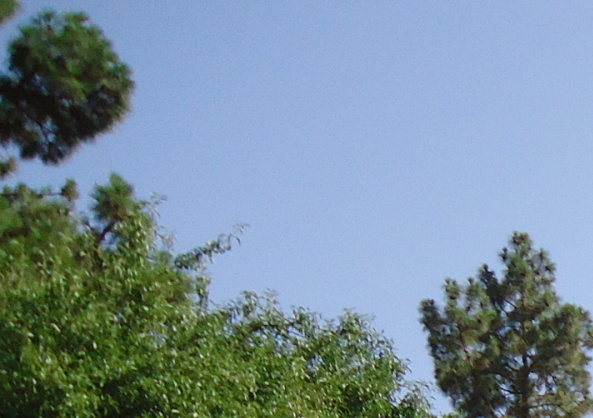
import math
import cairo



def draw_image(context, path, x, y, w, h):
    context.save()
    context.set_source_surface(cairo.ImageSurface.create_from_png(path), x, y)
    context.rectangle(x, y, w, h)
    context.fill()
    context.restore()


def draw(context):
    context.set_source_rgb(1, 1, 1)
    context.paint()
    draw_image(context, "images/1.png", 0, 0, 593, 418)


surface = cairo.ImageSurface(cairo.Format.RGB24, 593, 418)
context = cairo.Context(surface)
options = cairo.FontOptions()
options.set_hint_metrics(cairo.HintMetrics.OFF)
options.set_hint_style(cairo.HintStyle.NONE)
context.set_font_options(options)
context.set_miter_limit(4)
draw(context)
surface.write_to_png("out.png")
